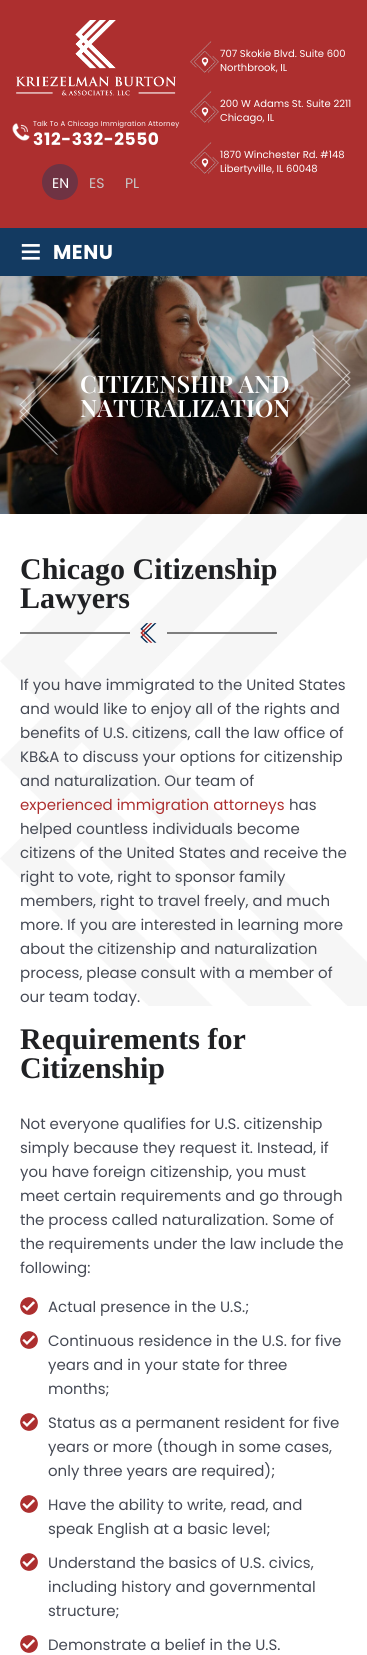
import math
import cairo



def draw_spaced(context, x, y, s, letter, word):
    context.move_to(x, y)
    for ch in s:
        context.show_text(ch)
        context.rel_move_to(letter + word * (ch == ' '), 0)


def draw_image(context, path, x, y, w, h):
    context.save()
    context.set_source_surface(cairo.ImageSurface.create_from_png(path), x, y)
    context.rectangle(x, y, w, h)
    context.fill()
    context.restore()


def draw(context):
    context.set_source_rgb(1, 1, 1)
    context.paint()
    context.set_source_rgb(173 / 255, 47 / 255, 47 / 255)
    context.rectangle(0, 0, 367, 228)
    context.fill()
    draw_image(context, "images/1.png", 16, 20, 160, 76)
    draw_image(context, "images/2.png", 12, 123, 18, 18)
    context.set_source_rgb(111 / 255, 51 / 255, 67 / 255)
    context.arc(60, 182, 18, 0, 2 * math.pi)
    context.fill()
    draw_image(context, "images/3.png", 190, 41, 29, 32)
    draw_image(context, "images/4.png", 190, 91, 29, 32)
    draw_image(context, "images/4.png", 190, 142, 29, 32)
    context.set_source_rgb(19 / 255, 58 / 255, 97 / 255)
    context.rectangle(0, 228, 367, 48)
    context.fill()
    draw_image(context, "images/5.png", 0, 276, 367, 238)
    draw_image(context, "images/8.png", 0, 514, 367, 492)
    draw_image(context, "images/9.png", 20, 623, 257, 20)
    draw_image(context, "images/10.png", 20, 1297, 18, 18)
    draw_image(context, "images/10.png", 20, 1331, 18, 18)
    draw_image(context, "images/10.png", 20, 1413, 18, 18)
    draw_image(context, "images/10.png", 20, 1495, 18, 18)
    draw_image(context, "images/10.png", 20, 1553, 18, 18)
    draw_image(context, "images/10.png", 20, 1635, 18, 18)
    context.select_font_face("Poppins")
    context.set_font_size(7)
    context.set_source_rgb(1, 1, 1)
    draw_spaced(context, 33, 126, "Talk To A Chicago Immigration Attorney", 0.2, 0)
    context.select_font_face("Poppins", cairo.FontSlant.NORMAL, cairo.FontWeight.BOLD)
    context.set_font_size(17)
    draw_spaced(context, 33, 145, "312-332-2550", 0.6, 0)
    context.select_font_face("Poppins")
    context.set_font_size(14)
    context.move_to(52, 188)
    context.show_text("EN")
    context.set_source_rgb(199 / 255, 199 / 255, 199 / 255)
    context.move_to(89, 188)
    context.show_text("ES")
    context.move_to(125, 188)
    context.show_text("PL")
    context.set_font_size(10)
    context.set_source_rgb(1, 1, 1)
    context.move_to(220, 57)
    context.show_text("707 Skokie Blvd. Suite 600")
    context.move_to(220, 71)
    context.show_text("Northbrook, IL")
    context.move_to(220, 107)
    context.show_text("200 W Adams St. Suite 2211")
    context.move_to(220, 121)
    context.show_text("Chicago, IL")
    context.move_to(220, 158)
    context.show_text("1870 Winchester Rd. #148")
    context.move_to(220, 172)
    context.show_text("Libertyville, IL 60048")
    context.select_font_face("Liberation Sans", cairo.FontSlant.NORMAL, cairo.FontWeight.BOLD)
    context.set_font_size(37)
    context.move_to(20, 264)
    context.show_text("≡")
    context.select_font_face("Poppins", cairo.FontSlant.NORMAL, cairo.FontWeight.BOLD)
    context.set_font_size(20)
    draw_spaced(context, 53, 259, "MENU", 0.5, 0)
    context.select_font_face("Playfair Display SemiBold")
    context.set_font_size(24)
    context.move_to(80, 393)
    context.show_text("CITIZENSHIP AND")
    context.move_to(80, 417)
    context.show_text("NATURALIZATION")
    draw_image(context, "images/7.png", 270, 335, 81, 130)
    draw_image(context, "images/6.png", 19, 325, 81, 130)
    context.select_font_face("Liberation Serif", cairo.FontSlant.NORMAL, cairo.FontWeight.BOLD)
    context.set_font_size(30)
    context.set_source_rgb(32 / 255, 33 / 255, 36 / 255)
    context.move_to(20, 579)
    context.show_text("Chicago Citizenship")
    context.move_to(20, 608)
    context.show_text("Lawyers")
    context.select_font_face("Poppins")
    context.set_font_size(15)
    context.set_source_rgb(69 / 255, 73 / 255, 84 / 255)
    context.move_to(20, 690)
    context.show_text("If you have immigrated to the United States")
    context.move_to(20, 714)
    context.show_text("and would like to enjoy all of the rights and")
    context.move_to(20, 738)
    context.show_text("benefits of U.S. citizens, call the law office of")
    context.move_to(20, 762)
    context.show_text("KB&A to discuss your options for citizenship")
    context.move_to(20, 786)
    context.show_text("and naturalization. Our team of")
    context.set_source_rgb(173 / 255, 47 / 255, 47 / 255)
    context.move_to(20, 810)
    context.show_text("experienced immigration attorneys")
    context.set_source_rgb(69 / 255, 73 / 255, 84 / 255)
    context.move_to(289, 810)
    context.show_text("has")
    context.move_to(20, 834)
    context.show_text("helped countless individuals become")
    context.move_to(20, 858)
    context.show_text("citizens of the United States and receive the")
    context.move_to(20, 882)
    context.show_text("right to vote, right to sponsor family")
    context.move_to(20, 906)
    context.show_text("members, right to travel freely, and much")
    context.move_to(20, 930)
    context.show_text("more. If you are interested in learning more")
    context.move_to(20, 954)
    context.show_text("about the citizenship and naturalization")
    context.move_to(20, 978)
    context.show_text("process, please consult with a member of")
    context.move_to(20, 1002)
    context.show_text("our team today.")
    context.select_font_face("Liberation Serif", cairo.FontSlant.NORMAL, cairo.FontWeight.BOLD)
    context.set_font_size(30)
    context.set_source_rgb(32 / 255, 33 / 255, 36 / 255)
    context.move_to(20, 1049)
    context.show_text("Requirements for")
    context.move_to(20, 1078)
    context.show_text("Citizenship")
    context.select_font_face("Poppins")
    context.set_font_size(15)
    context.set_source_rgb(69 / 255, 73 / 255, 84 / 255)
    context.move_to(20, 1129)
    context.show_text("Not everyone qualifies for U.S. citizenship")
    context.move_to(20, 1153)
    context.show_text("simply because they request it. Instead, if")
    context.move_to(20, 1177)
    context.show_text("you have foreign citizenship, you must")
    context.move_to(20, 1201)
    context.show_text("meet certain requirements and go through")
    context.move_to(20, 1225)
    context.show_text("the process called naturalization. Some of")
    context.move_to(20, 1249)
    context.show_text("the requirements under the law include the")
    context.move_to(20, 1273)
    context.show_text("following:")
    context.move_to(48, 1312)
    context.show_text("Actual presence in the U.S.;")
    context.move_to(48, 1346)
    context.show_text("Continuous residence in the U.S. for five")
    context.move_to(48, 1370)
    context.show_text("years and in your state for three")
    context.move_to(48, 1394)
    context.show_text("months;")
    context.move_to(48, 1428)
    context.show_text("Status as a permanent resident for five")
    context.move_to(48, 1452)
    context.show_text("years or more (though in some cases,")
    context.move_to(48, 1476)
    context.show_text("only three years are required);")
    context.move_to(48, 1510)
    context.show_text("Have the ability to write, read, and")
    context.move_to(48, 1534)
    context.show_text("speak English at a basic level;")
    context.move_to(48, 1568)
    context.show_text("Understand the basics of U.S. civics,")
    context.move_to(48, 1592)
    context.show_text("including history and governmental")
    context.move_to(48, 1616)
    context.show_text("structure;")
    context.move_to(48, 1650)
    context.show_text("Demonstrate a belief in the U.S.")


surface = cairo.ImageSurface(cairo.Format.RGB24, 367, 1655)
context = cairo.Context(surface)
options = cairo.FontOptions()
options.set_hint_metrics(cairo.HintMetrics.OFF)
options.set_hint_style(cairo.HintStyle.NONE)
context.set_font_options(options)
context.set_miter_limit(4)
draw(context)
surface.write_to_png("out.png")
